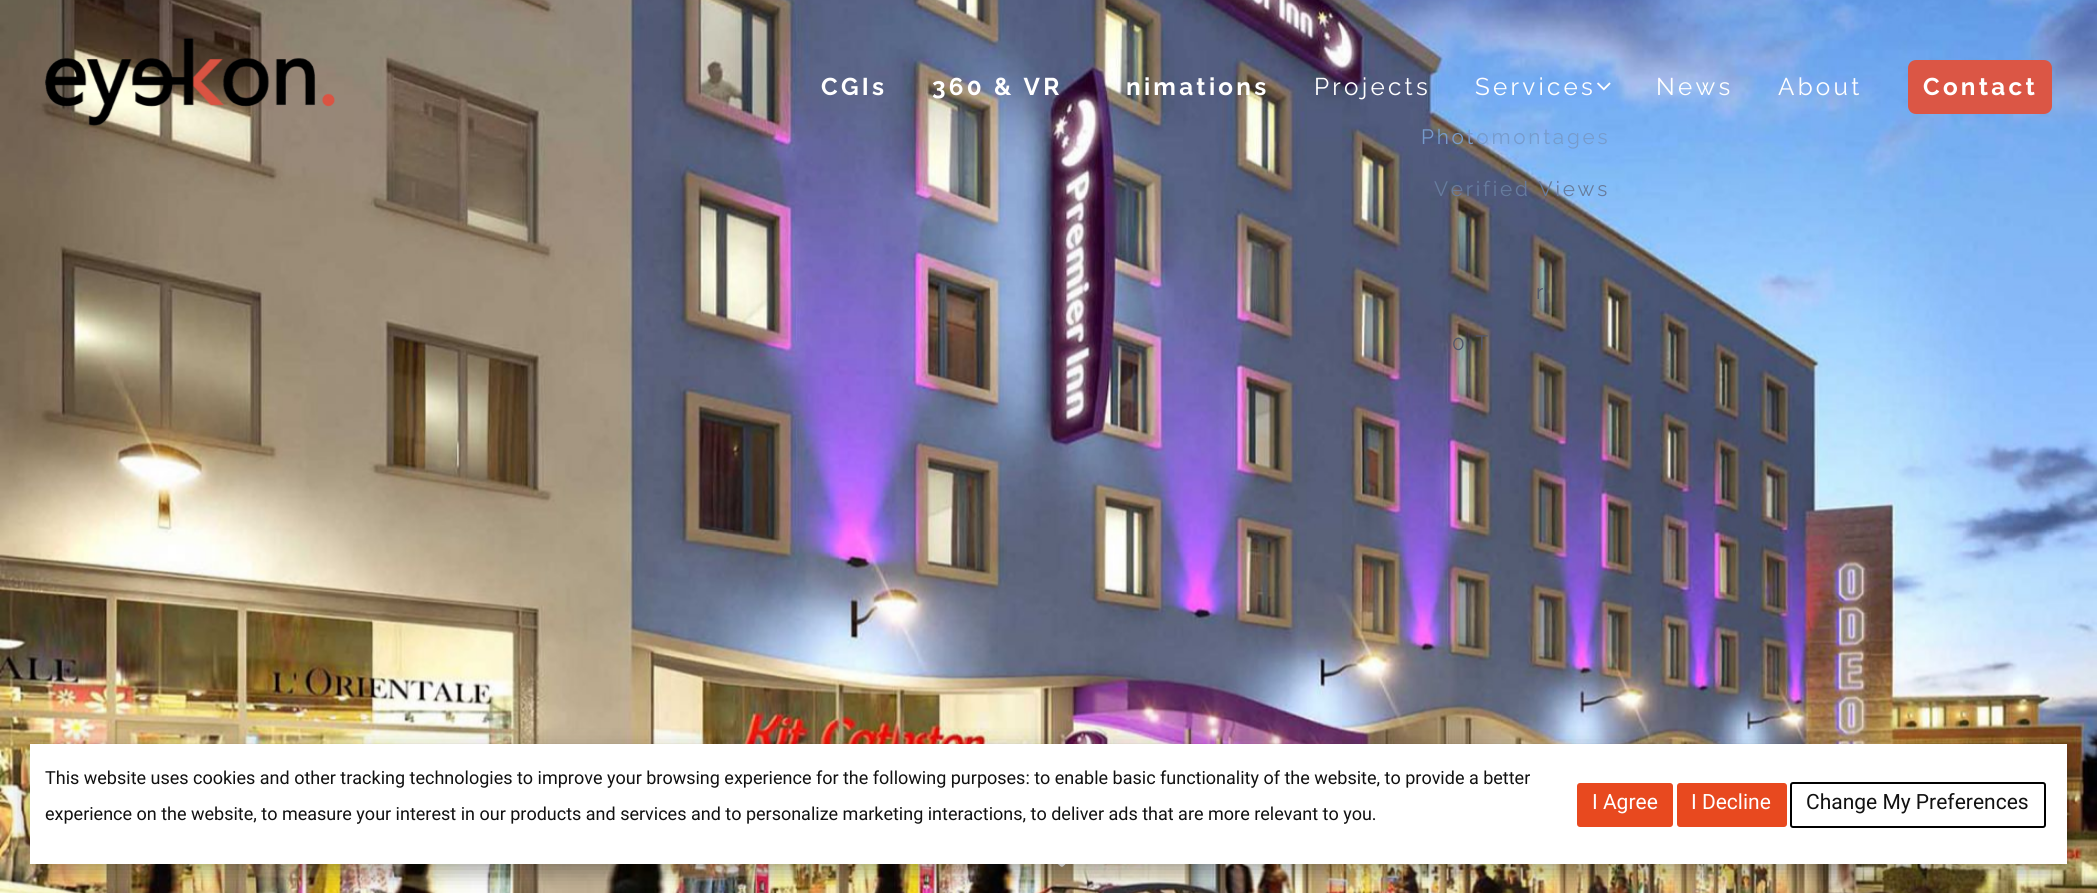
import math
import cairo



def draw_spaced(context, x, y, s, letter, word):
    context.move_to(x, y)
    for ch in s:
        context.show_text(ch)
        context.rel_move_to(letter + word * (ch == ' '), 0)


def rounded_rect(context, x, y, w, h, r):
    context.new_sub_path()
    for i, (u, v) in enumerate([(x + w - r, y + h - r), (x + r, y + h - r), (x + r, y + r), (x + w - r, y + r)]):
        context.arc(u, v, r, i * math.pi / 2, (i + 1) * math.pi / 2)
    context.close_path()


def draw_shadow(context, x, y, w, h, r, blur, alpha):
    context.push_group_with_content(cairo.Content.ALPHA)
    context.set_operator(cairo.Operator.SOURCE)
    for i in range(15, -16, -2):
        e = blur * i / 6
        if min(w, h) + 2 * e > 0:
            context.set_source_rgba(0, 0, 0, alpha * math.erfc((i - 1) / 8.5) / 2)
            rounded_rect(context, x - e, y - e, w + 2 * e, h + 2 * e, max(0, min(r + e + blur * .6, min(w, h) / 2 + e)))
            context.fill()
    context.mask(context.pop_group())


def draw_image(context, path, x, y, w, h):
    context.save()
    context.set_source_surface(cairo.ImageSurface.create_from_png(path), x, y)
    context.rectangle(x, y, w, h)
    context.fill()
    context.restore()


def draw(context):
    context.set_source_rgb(1, 1, 1)
    context.paint()
    draw_image(context, "images/1.png", 0, 0, 2097, 893)
    draw_image(context, "images/2.png", 45, 38, 290, 88)
    draw_image(context, "images/3.png", 1597, 82, 14, 9)
    context.set_source_rgb(219 / 255, 86 / 255, 69 / 255)
    rounded_rect(context, 1908, 60, 144, 54, 8)
    context.fill()
    context.set_source_rgb(1, 1, 1)
    context.new_path()
    context.move_to(1099, 827)
    context.curve_to(1102, 831, 1093, 836, 1093, 837)
    context.line_to(1069, 860)
    context.curve_to(1061, 869, 1063, 869, 1054, 860)
    context.line_to(1025, 831)
    context.curve_to(1023, 829, 1025, 828, 1026, 826)
    context.curve_to(1028, 825, 1030, 822, 1032, 824)
    context.line_to(1062, 853)
    context.line_to(1091, 824)
    context.curve_to(1094, 821, 1097, 826, 1099, 827)
    context.close_path()
    context.fill()
    context.set_source_rgb(0, 0, 0)
    draw_shadow(context, 30, 752, 2037, 120, 0, 11, 0.35)
    context.set_source_rgb(1, 1, 1)
    context.rectangle(30, 744, 2037, 120)
    context.fill()
    context.set_source_rgb(232 / 255, 73 / 255, 31 / 255)
    rounded_rect(context, 1577, 783, 96, 44, 3)
    context.fill()
    rounded_rect(context, 1677, 783, 110, 44, 3)
    context.fill()
    rounded_rect(context, 1791, 783, 254, 44, 2)
    context.set_source_rgb(0, 0, 0)
    context.stroke()
    context.select_font_face("Raleway", cairo.FontSlant.NORMAL, cairo.FontWeight.BOLD)
    context.set_font_size(24.25)
    context.set_source_rgb(1, 1, 1)
    draw_spaced(context, 821, 95, "CGIs", 3.25, 0)
    draw_spaced(context, 932, 95, "360 & VR", 3.25, 0)
    draw_spaced(context, 1126, 95, "nimations", 3.25, 0)
    context.select_font_face("Raleway")
    draw_spaced(context, 1314, 95, "Projects", 3.25, 0)
    draw_spaced(context, 1475, 95, "Services", 3.25, 0)
    context.set_font_size(20.75)
    context.set_source_rgb(118 / 255, 155 / 255, 204 / 255)
    draw_spaced(context, 1421, 144, "Photomontages", 2.75, 0)
    context.set_source_rgb(103 / 255, 124 / 255, 158 / 255)
    draw_spaced(context, 1434, 196, "Verified Views", 2.75, 0)
    context.set_source_rgb(82 / 255, 87 / 255, 108 / 255)
    draw_spaced(context, 1536, 299, "r", 2.75, 0)
    draw_spaced(context, 1452, 350, "0 T", 2.75, 0)
    context.set_font_size(24.25)
    context.set_source_rgb(1, 1, 1)
    draw_spaced(context, 1656, 95, "News", 3.25, 0)
    draw_spaced(context, 1778, 95, "About", 3.25, 0)
    context.select_font_face("Raleway", cairo.FontSlant.NORMAL, cairo.FontWeight.BOLD)
    draw_spaced(context, 1923, 95, "Contact", 3.25, 0)
    context.select_font_face("Roboto")
    context.set_font_size(18)
    context.set_source_rgb(17 / 255, 17 / 255, 17 / 255)
    context.move_to(45, 784)
    context.show_text("This website uses cookies and other tracking technologies to improve your browsing experience for the following purposes: to enable basic functionality of the website, to provide a better")
    context.move_to(45, 820)
    context.show_text("experience on the website, to measure your interest in our products and services and to personalize marketing interactions, to deliver ads that are more relevant to you.")
    context.set_font_size(21)
    context.set_source_rgb(1, 1, 1)
    context.move_to(1592, 809)
    context.show_text("I Agree")
    context.move_to(1691, 809)
    context.show_text("I Decline")
    context.set_source_rgb(17 / 255, 17 / 255, 17 / 255)
    context.move_to(1806, 809)
    context.show_text("Change My Preferences")


surface = cairo.ImageSurface(cairo.Format.RGB24, 2097, 893)
context = cairo.Context(surface)
options = cairo.FontOptions()
options.set_hint_metrics(cairo.HintMetrics.OFF)
options.set_hint_style(cairo.HintStyle.NONE)
context.set_font_options(options)
context.set_miter_limit(4)
draw(context)
surface.write_to_png("out.png")
